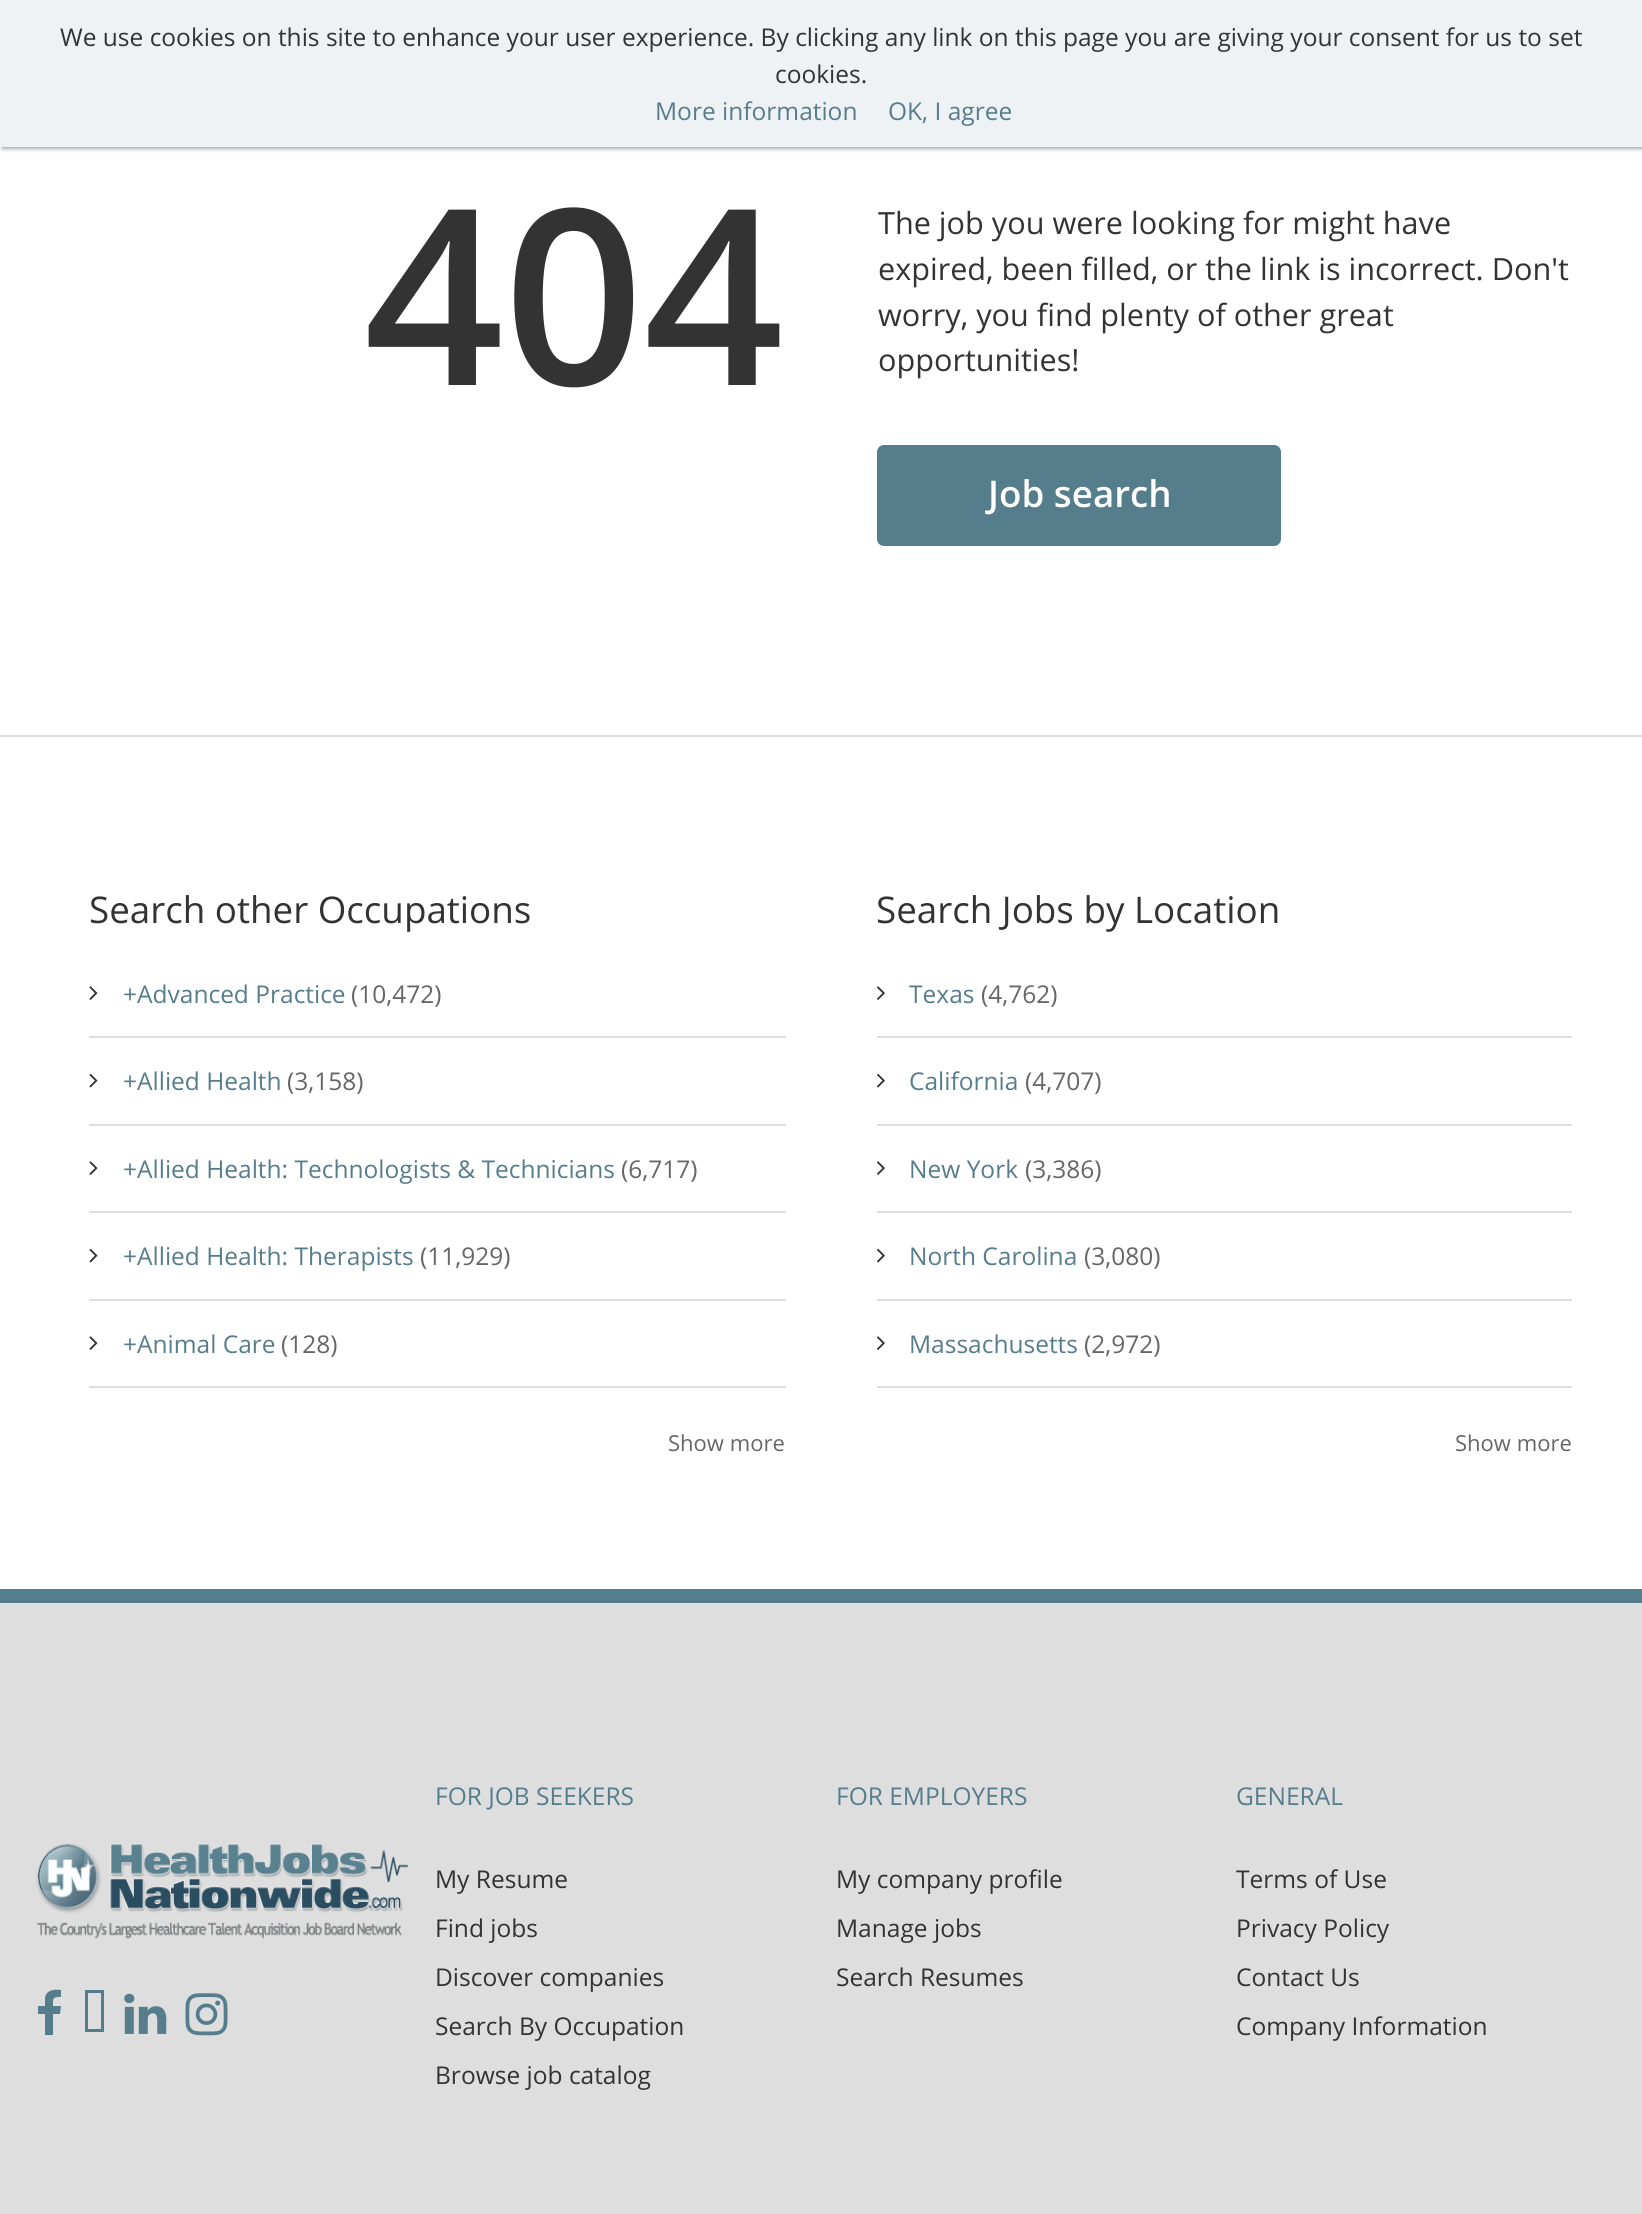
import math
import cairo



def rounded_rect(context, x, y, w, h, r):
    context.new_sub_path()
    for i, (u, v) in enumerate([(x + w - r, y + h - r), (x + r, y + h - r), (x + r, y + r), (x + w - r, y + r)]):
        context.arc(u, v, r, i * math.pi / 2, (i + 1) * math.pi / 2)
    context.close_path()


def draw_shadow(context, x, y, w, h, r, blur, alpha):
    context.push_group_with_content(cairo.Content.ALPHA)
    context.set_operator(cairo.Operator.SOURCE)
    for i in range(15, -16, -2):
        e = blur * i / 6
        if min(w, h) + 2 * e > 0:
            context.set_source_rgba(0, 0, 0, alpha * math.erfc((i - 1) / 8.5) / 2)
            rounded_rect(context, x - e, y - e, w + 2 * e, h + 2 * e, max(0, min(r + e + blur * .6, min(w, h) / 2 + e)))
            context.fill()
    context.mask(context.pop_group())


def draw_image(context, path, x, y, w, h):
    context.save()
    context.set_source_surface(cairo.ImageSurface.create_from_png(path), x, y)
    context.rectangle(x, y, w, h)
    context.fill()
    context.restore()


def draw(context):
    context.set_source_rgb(222 / 255, 222 / 255, 222 / 255)
    context.paint()
    context.set_source_rgb(1, 1, 1)
    context.rectangle(0, 147, 1642, 588)
    context.fill()
    context.set_source_rgb(168 / 255, 168 / 255, 168 / 255)
    draw_shadow(context, 2, 2, 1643, 147, 0, 2, 1)
    context.set_source_rgb(239 / 255, 242 / 255, 244 / 255)
    context.rectangle(0, 0, 1642, 147)
    context.fill()
    context.set_source_rgb(86 / 255, 125 / 255, 140 / 255)
    rounded_rect(context, 877, 445, 404, 101, 7)
    context.fill()
    context.set_source_rgb(1, 1, 1)
    context.rectangle(0, 737, 1642, 852)
    context.fill()
    context.set_source_rgb(222 / 255, 222 / 255, 222 / 255)
    context.rectangle(89, 1036, 697, 2)
    context.fill()
    draw_image(context, "images/1.png", 89, 986, 9, 14)
    context.rectangle(89, 1124, 697, 2)
    context.fill()
    draw_image(context, "images/2.png", 89, 1073, 9, 15)
    context.rectangle(89, 1211, 697, 2)
    context.fill()
    draw_image(context, "images/1.png", 89, 1161, 9, 14)
    context.rectangle(89, 1299, 697, 2)
    context.fill()
    draw_image(context, "images/2.png", 89, 1248, 9, 15)
    context.rectangle(89, 1386, 697, 2)
    context.fill()
    draw_image(context, "images/1.png", 89, 1336, 9, 14)
    context.rectangle(877, 1036, 695, 2)
    context.fill()
    draw_image(context, "images/3.png", 877, 986, 8, 14)
    context.rectangle(877, 1124, 695, 2)
    context.fill()
    draw_image(context, "images/4.png", 877, 1073, 8, 15)
    context.rectangle(877, 1211, 695, 2)
    context.fill()
    draw_image(context, "images/3.png", 877, 1161, 8, 14)
    context.rectangle(877, 1299, 695, 2)
    context.fill()
    draw_image(context, "images/4.png", 877, 1248, 8, 15)
    context.rectangle(877, 1386, 695, 2)
    context.fill()
    draw_image(context, "images/3.png", 877, 1336, 8, 14)
    context.set_source_rgb(86 / 255, 125 / 255, 140 / 255)
    context.rectangle(0, 1589, 1642, 14)
    context.fill()
    draw_image(context, "images/5.png", 36, 1843, 372, 96)
    context.new_path()
    context.move_to(61, 1990)
    context.curve_to(54, 1989, 46, 1990, 45, 1998)
    context.line_to(45, 2006)
    context.line_to(38, 2006)
    context.line_to(38, 2014)
    context.line_to(45, 2014)
    context.line_to(45, 2035)
    context.line_to(53, 2035)
    context.line_to(53, 2014)
    context.line_to(60, 2014)
    context.line_to(61, 2006)
    context.line_to(53, 2006)
    context.curve_to(53, 1998, 52, 1997, 61, 1997)
    context.close_path()
    context.fill()
    context.new_path()
    context.move_to(88, 2029)
    context.line_to(88, 1993)
    context.line_to(101, 1993)
    context.line_to(101, 2029)
    context.close_path()
    context.move_to(85, 2032)
    context.line_to(104, 2032)
    context.line_to(104, 1990)
    context.line_to(85, 1990)
    context.close_path()
    context.fill()
    draw_image(context, "images/6.png", 124, 1993, 43, 41)
    draw_image(context, "images/7.png", 185, 1993, 43, 43)
    context.select_font_face("Open Sans")
    context.set_font_size(24.5)
    context.set_source_rgb(51 / 255, 51 / 255, 51 / 255)
    context.move_to(60, 46)
    context.show_text("We use cookies on this site to enhance your user experience. By clicking any link on this page you are giving your consent for us to set")
    context.move_to(775, 83)
    context.show_text("cookies.")
    context.set_source_rgb(86 / 255, 125 / 255, 140 / 255)
    context.move_to(655, 120)
    context.show_text("More information")
    context.move_to(888, 120)
    context.show_text("OK, I agree")
    context.select_font_face("Open Sans SemiBold")
    context.set_font_size(245)
    context.set_source_rgb(51 / 255, 51 / 255, 51 / 255)
    context.move_to(364, 385)
    context.show_text("404")
    context.select_font_face("Open Sans")
    context.set_font_size(30.6)
    context.move_to(878, 234)
    context.show_text("The job you were looking for might have")
    context.move_to(878, 280)
    context.show_text("expired, been filled, or the link is incorrect. Don't")
    context.move_to(878, 326)
    context.show_text("worry, you find plenty of other great")
    context.move_to(878, 371)
    context.show_text("opportunities!")
    context.select_font_face("Open Sans SemiBold")
    context.set_font_size(36.75)
    context.set_source_rgb(1, 1, 1)
    context.move_to(988, 507)
    context.show_text("Job search")
    context.select_font_face("Open Sans")
    context.set_source_rgb(51 / 255, 51 / 255, 51 / 255)
    context.move_to(89, 923)
    context.show_text("Search other Occupations")
    context.set_font_size(24.5)
    context.set_source_rgb(86 / 255, 125 / 255, 140 / 255)
    context.move_to(123, 1003)
    context.show_text("+Advanced Practice")
    context.set_source_rgb(102 / 255, 102 / 255, 102 / 255)
    context.move_to(351, 1003)
    context.show_text("(10,472)")
    context.set_source_rgb(86 / 255, 125 / 255, 140 / 255)
    context.move_to(123, 1090)
    context.show_text("+Allied Health")
    context.set_source_rgb(102 / 255, 102 / 255, 102 / 255)
    context.move_to(287, 1090)
    context.show_text("(3,158)")
    context.set_source_rgb(86 / 255, 125 / 255, 140 / 255)
    context.move_to(123, 1178)
    context.show_text("+Allied Health: Technologists & Technicians")
    context.set_source_rgb(102 / 255, 102 / 255, 102 / 255)
    context.move_to(621, 1178)
    context.show_text("(6,717)")
    context.set_source_rgb(86 / 255, 125 / 255, 140 / 255)
    context.move_to(123, 1265)
    context.show_text("+Allied Health: Therapists")
    context.set_source_rgb(102 / 255, 102 / 255, 102 / 255)
    context.move_to(420, 1265)
    context.show_text("(11,929)")
    context.set_source_rgb(86 / 255, 125 / 255, 140 / 255)
    context.move_to(123, 1353)
    context.show_text("+Animal Care")
    context.set_source_rgb(102 / 255, 102 / 255, 102 / 255)
    context.move_to(281, 1353)
    context.show_text("(128)")
    context.set_font_size(22)
    context.move_to(668, 1451)
    context.show_text("Show more")
    context.set_font_size(36.75)
    context.set_source_rgb(51 / 255, 51 / 255, 51 / 255)
    context.move_to(876, 923)
    context.show_text("Search Jobs by Location")
    context.set_font_size(24.5)
    context.set_source_rgb(86 / 255, 125 / 255, 140 / 255)
    context.move_to(909, 1003)
    context.show_text("Texas")
    context.set_source_rgb(102 / 255, 102 / 255, 102 / 255)
    context.move_to(981, 1003)
    context.show_text("(4,762)")
    context.set_source_rgb(86 / 255, 125 / 255, 140 / 255)
    context.move_to(909, 1090)
    context.show_text("California")
    context.set_source_rgb(102 / 255, 102 / 255, 102 / 255)
    context.move_to(1025, 1090)
    context.show_text("(4,707)")
    context.set_source_rgb(86 / 255, 125 / 255, 140 / 255)
    context.move_to(909, 1178)
    context.show_text("New York")
    context.set_source_rgb(102 / 255, 102 / 255, 102 / 255)
    context.move_to(1025, 1178)
    context.show_text("(3,386)")
    context.set_source_rgb(86 / 255, 125 / 255, 140 / 255)
    context.move_to(909, 1265)
    context.show_text("North Carolina")
    context.set_source_rgb(102 / 255, 102 / 255, 102 / 255)
    context.move_to(1084, 1265)
    context.show_text("(3,080)")
    context.set_source_rgb(86 / 255, 125 / 255, 140 / 255)
    context.move_to(909, 1353)
    context.show_text("Massachusetts")
    context.set_source_rgb(102 / 255, 102 / 255, 102 / 255)
    context.move_to(1084, 1353)
    context.show_text("(2,972)")
    context.set_font_size(22)
    context.move_to(1455, 1451)
    context.show_text("Show more")
    context.set_font_size(24.5)
    context.set_source_rgb(86 / 255, 125 / 255, 140 / 255)
    context.move_to(435, 1805)
    context.show_text("FOR JOB SEEKERS")
    context.set_source_rgb(51 / 255, 51 / 255, 51 / 255)
    context.move_to(435, 1888)
    context.show_text("My Resume")
    context.move_to(435, 1937)
    context.show_text("Find jobs")
    context.move_to(435, 1986)
    context.show_text("Discover companies")
    context.move_to(435, 2035)
    context.show_text("Search By Occupation")
    context.move_to(435, 2084)
    context.show_text("Browse job catalog")
    context.set_source_rgb(86 / 255, 125 / 255, 140 / 255)
    context.move_to(836, 1805)
    context.show_text("FOR EMPLOYERS")
    context.set_source_rgb(51 / 255, 51 / 255, 51 / 255)
    context.move_to(836, 1888)
    context.show_text("My company profile")
    context.move_to(836, 1937)
    context.show_text("Manage jobs")
    context.move_to(836, 1986)
    context.show_text("Search Resumes")
    context.set_source_rgb(86 / 255, 125 / 255, 140 / 255)
    context.move_to(1236, 1805)
    context.show_text("GENERAL")
    context.set_source_rgb(51 / 255, 51 / 255, 51 / 255)
    context.move_to(1236, 1888)
    context.show_text("Terms of Use")
    context.move_to(1236, 1937)
    context.show_text("Privacy Policy")
    context.move_to(1236, 1986)
    context.show_text("Contact Us")
    context.move_to(1236, 2035)
    context.show_text("Company Information")


surface = cairo.ImageSurface(cairo.Format.RGB24, 1642, 2214)
context = cairo.Context(surface)
options = cairo.FontOptions()
options.set_hint_metrics(cairo.HintMetrics.OFF)
options.set_hint_style(cairo.HintStyle.NONE)
context.set_font_options(options)
context.set_miter_limit(4)
draw(context)
surface.write_to_png("out.png")
